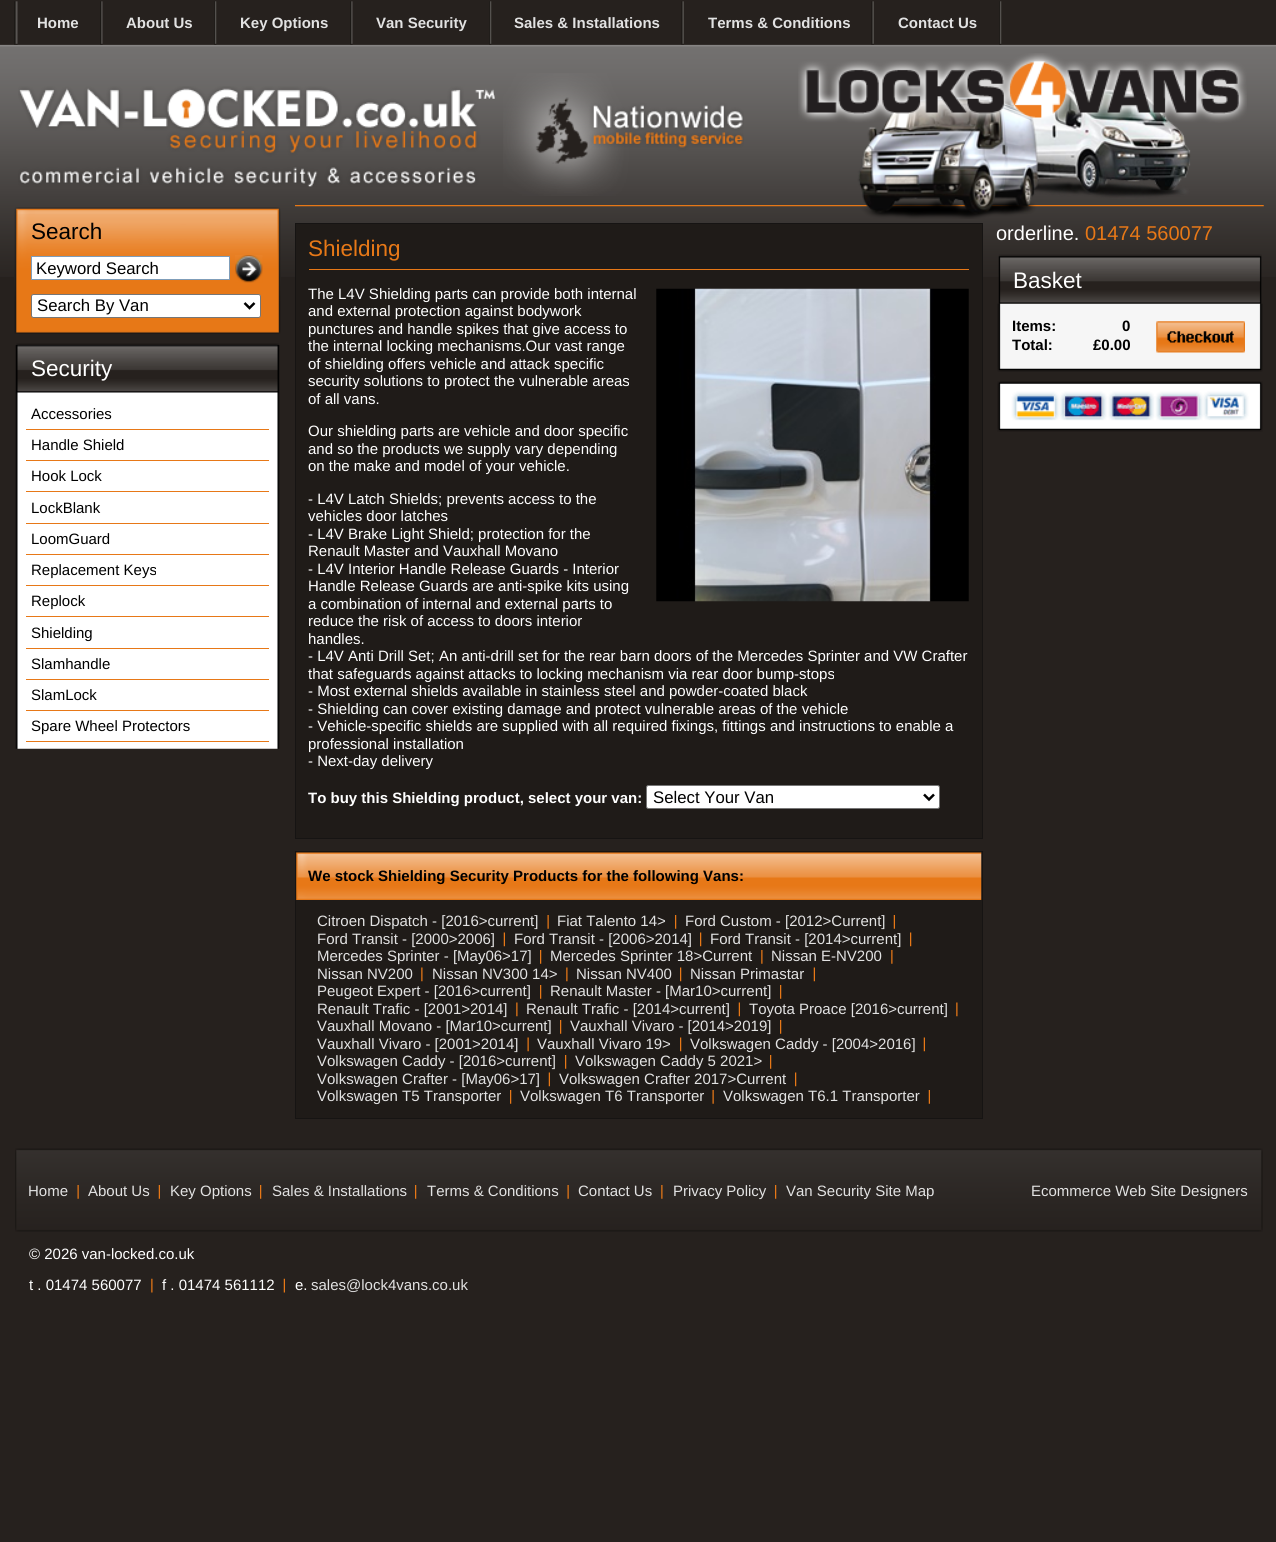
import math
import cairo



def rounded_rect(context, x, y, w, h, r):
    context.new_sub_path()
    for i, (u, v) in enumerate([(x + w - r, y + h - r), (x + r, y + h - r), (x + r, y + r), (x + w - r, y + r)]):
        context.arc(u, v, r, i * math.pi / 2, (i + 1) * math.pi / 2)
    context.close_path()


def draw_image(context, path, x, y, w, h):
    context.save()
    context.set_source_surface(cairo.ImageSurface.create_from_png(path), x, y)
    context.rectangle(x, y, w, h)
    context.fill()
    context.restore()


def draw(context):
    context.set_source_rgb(38 / 255, 33 / 255, 30 / 255)
    context.paint()
    draw_image(context, "images/1.png", 0, 44, 1276, 233)
    draw_image(context, "images/2.png", 295, 205, 969, 2)
    draw_image(context, "images/3.png", 14, 1, 4, 44)
    draw_image(context, "images/4.png", 100, 1, 3, 44)
    draw_image(context, "images/5.png", 214, 1, 3, 44)
    draw_image(context, "images/4.png", 350, 1, 3, 44)
    draw_image(context, "images/5.png", 489, 1, 3, 44)
    draw_image(context, "images/6.png", 681, 1, 3, 44)
    draw_image(context, "images/6.png", 871, 1, 3, 44)
    draw_image(context, "images/5.png", 999, 1, 3, 44)
    draw_image(context, "images/7.png", 18, 86, 477, 101)
    draw_image(context, "images/8.png", 503, 73, 241, 123)
    draw_image(context, "images/9.png", 798, 53, 449, 166)
    draw_image(context, "images/10.png", 14, 207, 267, 127)
    context.set_source_rgb(1, 1, 1)
    context.rectangle(31.5, 256.5, 198, 23)
    context.fill_preserve()
    context.set_source_rgb(127 / 255, 157 / 255, 185 / 255)
    context.set_line_width(1)
    context.stroke()
    draw_image(context, "images/11.png", 235, 255, 28, 28)
    context.set_source_rgb(1, 1, 1)
    rounded_rect(context, 31.5, 294.5, 229, 23, 2)
    context.fill_preserve()
    context.set_source_rgb(118 / 255, 118 / 255, 118 / 255)
    context.stroke()
    context.new_path()
    context.move_to(244.5, 303)
    context.line_to(249.5, 308)
    context.line_to(254.5, 303)
    context.set_source_rgb(0, 0, 0)
    context.set_line_width(2.5)
    context.stroke()
    draw_image(context, "images/12.png", 15, 345, 265, 404)
    draw_image(context, "images/13.png", 16, 343, 263, 50)
    context.set_source_rgb(231 / 255, 120 / 255, 23 / 255)
    context.rectangle(26, 429, 243, 1)
    context.fill()
    context.rectangle(26, 460, 243, 1)
    context.fill()
    context.rectangle(26, 491, 243, 1)
    context.fill()
    context.rectangle(26, 523, 243, 1)
    context.fill()
    context.rectangle(26, 554, 243, 1)
    context.fill()
    context.rectangle(26, 585, 243, 1)
    context.fill()
    context.rectangle(26, 616, 243, 1)
    context.fill()
    context.rectangle(26, 648, 243, 1)
    context.fill()
    context.rectangle(26, 679, 243, 1)
    context.fill()
    context.rectangle(26, 710, 243, 1)
    context.fill()
    context.rectangle(26, 741, 243, 1)
    context.fill()
    context.set_source_rgb(31 / 255, 27 / 255, 24 / 255)
    context.rectangle(295.5, 223.5, 687, 615)
    context.fill_preserve()
    context.set_source_rgb(22 / 255, 20 / 255, 19 / 255)
    context.set_line_width(1)
    context.stroke()
    context.set_source_rgb(231 / 255, 120 / 255, 23 / 255)
    context.rectangle(309, 269, 660, 1)
    context.fill()
    draw_image(context, "images/14.png", 656, 288, 313, 314)
    context.set_source_rgb(1, 1, 1)
    rounded_rect(context, 646.5, 785.5, 293, 23, 2)
    context.fill_preserve()
    context.set_source_rgb(118 / 255, 118 / 255, 118 / 255)
    context.stroke()
    context.new_path()
    context.move_to(924, 794.5)
    context.line_to(929, 799.5)
    context.line_to(934, 794.5)
    context.set_source_rgb(0, 0, 0)
    context.set_line_width(2.5)
    context.stroke()
    context.set_source_rgb(31 / 255, 27 / 255, 24 / 255)
    context.rectangle(295.5, 851.5, 687, 267)
    context.fill_preserve()
    context.set_source_rgb(22 / 255, 20 / 255, 19 / 255)
    context.set_line_width(1)
    context.stroke()
    draw_image(context, "images/15.png", 296, 852, 686, 48)
    draw_image(context, "images/16.png", 547, 915, 2, 14)
    draw_image(context, "images/17.png", 675, 915, 2, 14)
    draw_image(context, "images/18.png", 893, 915, 2, 14)
    draw_image(context, "images/19.png", 503, 932, 2, 15)
    draw_image(context, "images/20.png", 700, 932, 2, 15)
    draw_image(context, "images/20.png", 910, 932, 2, 15)
    draw_image(context, "images/17.png", 540, 950, 2, 14)
    draw_image(context, "images/21.png", 761, 950, 2, 14)
    draw_image(context, "images/21.png", 891, 950, 2, 14)
    draw_image(context, "images/22.png", 421, 967, 2, 15)
    draw_image(context, "images/22.png", 566, 967, 2, 15)
    draw_image(context, "images/20.png", 680, 967, 2, 15)
    draw_image(context, "images/19.png", 813, 967, 2, 15)
    draw_image(context, "images/17.png", 540, 985, 2, 14)
    draw_image(context, "images/17.png", 780, 985, 2, 14)
    draw_image(context, "images/22.png", 516, 1002, 2, 15)
    draw_image(context, "images/19.png", 738, 1002, 2, 15)
    draw_image(context, "images/22.png", 956, 1002, 2, 15)
    draw_image(context, "images/17.png", 560, 1020, 2, 14)
    draw_image(context, "images/17.png", 780, 1020, 2, 14)
    draw_image(context, "images/23.png", 527, 1037, 2, 15)
    draw_image(context, "images/20.png", 680, 1037, 2, 15)
    draw_image(context, "images/19.png", 923, 1037, 2, 15)
    draw_image(context, "images/17.png", 565, 1055, 2, 14)
    draw_image(context, "images/17.png", 770, 1055, 2, 14)
    draw_image(context, "images/19.png", 548, 1072, 2, 15)
    draw_image(context, "images/20.png", 795, 1072, 2, 15)
    draw_image(context, "images/17.png", 510, 1090, 2, 14)
    draw_image(context, "images/16.png", 712, 1090, 2, 14)
    draw_image(context, "images/18.png", 928, 1090, 2, 14)
    draw_image(context, "images/24.png", 998, 254, 264, 50)
    draw_image(context, "images/25.png", 997, 303, 266, 69)
    draw_image(context, "images/26.png", 1156, 321, 89, 32)
    draw_image(context, "images/27.png", 997, 381, 266, 51)
    draw_image(context, "images/28.png", 15, 1148, 1248, 84)
    draw_image(context, "images/29.png", 77, 1185, 2, 14)
    draw_image(context, "images/30.png", 158, 1185, 2, 14)
    draw_image(context, "images/31.png", 260, 1185, 2, 14)
    draw_image(context, "images/31.png", 415, 1185, 2, 14)
    draw_image(context, "images/29.png", 567, 1185, 2, 14)
    draw_image(context, "images/32.png", 661, 1185, 2, 14)
    draw_image(context, "images/31.png", 775, 1185, 2, 14)
    draw_image(context, "images/33.png", 151, 1278, 2, 15)
    draw_image(context, "images/34.png", 283, 1278, 2, 15)
    context.select_font_face("Liberation Sans", cairo.FontSlant.NORMAL, cairo.FontWeight.BOLD)
    context.set_font_size(15)
    context.set_source_rgb(226 / 255, 226 / 255, 226 / 255)
    context.move_to(37, 28)
    context.show_text("Home")
    context.move_to(126, 28)
    context.show_text("About Us")
    context.move_to(240, 28)
    context.show_text("Key Options")
    context.move_to(376, 28)
    context.show_text("Van Security")
    context.move_to(514, 28)
    context.show_text("Sales & Installations")
    context.move_to(708, 28)
    context.show_text("Terms & Conditions")
    context.move_to(898, 28)
    context.show_text("Contact Us")
    context.select_font_face("Liberation Sans")
    context.set_font_size(22.5)
    context.set_source_rgb(0, 0, 0)
    context.move_to(31, 239)
    context.show_text("Search")
    context.set_font_size(16.75)
    context.move_to(36, 274)
    context.show_text("Keyword Search")
    context.move_to(37, 311)
    context.show_text("Search By Van")
    context.set_font_size(22.5)
    context.set_source_rgb(1, 1, 1)
    context.move_to(31, 376)
    context.show_text("Security")
    context.set_font_size(15)
    context.set_source_rgb(0, 0, 0)
    context.move_to(31, 419)
    context.show_text("Accessories")
    context.move_to(31, 450)
    context.show_text("Handle Shield")
    context.move_to(31, 481)
    context.show_text("Hook Lock")
    context.move_to(31, 513)
    context.show_text("LockBlank")
    context.move_to(31, 544)
    context.show_text("LoomGuard")
    context.move_to(31, 575)
    context.show_text("Replacement Keys")
    context.move_to(31, 606)
    context.show_text("Replock")
    context.move_to(31, 638)
    context.show_text("Shielding")
    context.move_to(31, 669)
    context.show_text("Slamhandle")
    context.move_to(31, 700)
    context.show_text("SlamLock")
    context.move_to(31, 731)
    context.show_text("Spare Wheel Protectors")
    context.set_font_size(22.5)
    context.set_source_rgb(231 / 255, 120 / 255, 23 / 255)
    context.move_to(308, 256)
    context.show_text("Shielding")
    context.set_font_size(15)
    context.set_source_rgb(1, 1, 1)
    context.move_to(308, 299)
    context.show_text("The L4V Shielding parts can provide both internal")
    context.move_to(308, 316)
    context.show_text("and external protection against bodywork")
    context.move_to(308, 334)
    context.show_text("punctures and handle spikes that give access to")
    context.move_to(308, 351)
    context.show_text("the internal locking mechanisms.Our vast range")
    context.move_to(308, 369)
    context.show_text("of shielding offers vehicle and attack specific")
    context.move_to(308, 386)
    context.show_text("security solutions to protect the vulnerable areas")
    context.move_to(308, 404)
    context.show_text("of all vans.")
    context.move_to(308, 436)
    context.show_text("Our shielding parts are vehicle and door specific")
    context.move_to(308, 454)
    context.show_text("and so the products we supply vary depending")
    context.move_to(308, 471)
    context.show_text("on the make and model of your vehicle.")
    context.move_to(308, 504)
    context.show_text("- L4V Latch Shields; prevents access to the")
    context.move_to(308, 521)
    context.show_text("vehicles door latches")
    context.move_to(308, 539)
    context.show_text("- L4V Brake Light Shield; protection for the")
    context.move_to(308, 556)
    context.show_text("Renault Master and Vauxhall Movano")
    context.move_to(308, 574)
    context.show_text("- L4V Interior Handle Release Guards - Interior")
    context.move_to(308, 591)
    context.show_text("Handle Release Guards are anti-spike kits using")
    context.move_to(308, 609)
    context.show_text("a combination of internal and external parts to")
    context.move_to(308, 626)
    context.show_text("reduce the risk of access to doors interior")
    context.move_to(308, 644)
    context.show_text("handles.")
    context.move_to(308, 661)
    context.show_text("- L4V Anti Drill Set; An anti-drill set for the rear barn doors of the Mercedes Sprinter and VW Crafter")
    context.move_to(308, 679)
    context.show_text("that safeguards against attacks to locking mechanism via rear door bump-stops")
    context.move_to(308, 696)
    context.show_text("- Most external shields available in stainless steel and powder-coated black")
    context.move_to(308, 714)
    context.show_text("- Shielding can cover existing damage and protect vulnerable areas of the vehicle")
    context.move_to(308, 731)
    context.show_text("- Vehicle-specific shields are supplied with all required fixings, fittings and instructions to enable a")
    context.move_to(308, 749)
    context.show_text("professional installation")
    context.move_to(308, 766)
    context.show_text("- Next-day delivery")
    context.select_font_face("Liberation Sans", cairo.FontSlant.NORMAL, cairo.FontWeight.BOLD)
    context.move_to(308, 803)
    context.show_text("To buy this Shielding product, select your van:")
    context.select_font_face("Liberation Sans")
    context.set_font_size(16.75)
    context.set_source_rgb(0, 0, 0)
    context.move_to(653, 803)
    context.show_text("Select Your Van")
    context.select_font_face("Liberation Sans", cairo.FontSlant.NORMAL, cairo.FontWeight.BOLD)
    context.set_font_size(15)
    context.move_to(308, 881)
    context.show_text("We stock Shielding Security Products for the following Vans:")
    context.select_font_face("Liberation Sans")
    context.set_source_rgb(226 / 255, 226 / 255, 226 / 255)
    context.move_to(317, 926)
    context.show_text("Citroen Dispatch - [2016>current]")
    context.move_to(557, 926)
    context.show_text("Fiat Talento 14>")
    context.move_to(685, 926)
    context.show_text("Ford Custom - [2012>Current]")
    context.move_to(317, 944)
    context.show_text("Ford Transit - [2000>2006]")
    context.move_to(514, 944)
    context.show_text("Ford Transit - [2006>2014]")
    context.move_to(710, 944)
    context.show_text("Ford Transit - [2014>current]")
    context.move_to(317, 961)
    context.show_text("Mercedes Sprinter - [May06>17]")
    context.move_to(550, 961)
    context.show_text("Mercedes Sprinter 18>Current")
    context.move_to(771, 961)
    context.show_text("Nissan E-NV200")
    context.move_to(317, 979)
    context.show_text("Nissan NV200")
    context.move_to(432, 979)
    context.show_text("Nissan NV300 14>")
    context.move_to(576, 979)
    context.show_text("Nissan NV400")
    context.move_to(690, 979)
    context.show_text("Nissan Primastar")
    context.move_to(317, 996)
    context.show_text("Peugeot Expert - [2016>current]")
    context.move_to(550, 996)
    context.show_text("Renault Master - [Mar10>current]")
    context.move_to(317, 1014)
    context.show_text("Renault Trafic - [2001>2014]")
    context.move_to(526, 1014)
    context.show_text("Renault Trafic - [2014>current]")
    context.move_to(749, 1014)
    context.show_text("Toyota Proace [2016>current]")
    context.move_to(317, 1031)
    context.show_text("Vauxhall Movano - [Mar10>current]")
    context.move_to(570, 1031)
    context.show_text("Vauxhall Vivaro - [2014>2019]")
    context.move_to(317, 1049)
    context.show_text("Vauxhall Vivaro - [2001>2014]")
    context.move_to(537, 1049)
    context.show_text("Vauxhall Vivaro 19>")
    context.move_to(690, 1049)
    context.show_text("Volkswagen Caddy - [2004>2016]")
    context.move_to(317, 1066)
    context.show_text("Volkswagen Caddy - [2016>current]")
    context.move_to(575, 1066)
    context.show_text("Volkswagen Caddy 5 2021>")
    context.move_to(317, 1084)
    context.show_text("Volkswagen Crafter - [May06>17]")
    context.move_to(559, 1084)
    context.show_text("Volkswagen Crafter 2017>Current")
    context.move_to(317, 1101)
    context.show_text("Volkswagen T5 Transporter")
    context.move_to(520, 1101)
    context.show_text("Volkswagen T6 Transporter")
    context.move_to(723, 1101)
    context.show_text("Volkswagen T6.1 Transporter")
    context.set_font_size(20)
    context.set_source_rgb(1, 1, 1)
    context.move_to(996, 240)
    context.show_text("orderline.")
    context.set_source_rgb(231 / 255, 120 / 255, 23 / 255)
    context.move_to(1085, 240)
    context.show_text("01474 560077")
    context.set_font_size(22.5)
    context.set_source_rgb(1, 1, 1)
    context.move_to(1013, 288)
    context.show_text("Basket")
    context.select_font_face("Liberation Sans", cairo.FontSlant.NORMAL, cairo.FontWeight.BOLD)
    context.set_font_size(15)
    context.set_source_rgb(0, 0, 0)
    context.move_to(1012, 331)
    context.show_text("Items:")
    context.move_to(1122, 331)
    context.show_text("0")
    context.move_to(1012, 350)
    context.show_text("Total:")
    context.move_to(1093, 350)
    context.show_text("£0.00")
    context.select_font_face("Liberation Sans")
    context.set_source_rgb(226 / 255, 226 / 255, 226 / 255)
    context.move_to(28, 1196)
    context.show_text("Home")
    context.move_to(88, 1196)
    context.show_text("About Us")
    context.move_to(170, 1196)
    context.show_text("Key Options")
    context.move_to(272, 1196)
    context.show_text("Sales & Installations")
    context.move_to(427, 1196)
    context.show_text("Terms & Conditions")
    context.move_to(578, 1196)
    context.show_text("Contact Us")
    context.move_to(673, 1196)
    context.show_text("Privacy Policy")
    context.move_to(786, 1196)
    context.show_text("Van Security Site Map")
    context.move_to(1031, 1196)
    context.show_text("Ecommerce Web Site Designers")
    context.set_source_rgb(1, 1, 1)
    context.move_to(29, 1259)
    context.show_text("© 2026 van-locked.co.uk")
    context.move_to(29, 1290)
    context.show_text("t . 01474 560077")
    context.move_to(162, 1290)
    context.show_text("f . 01474 561112")
    context.move_to(295, 1290)
    context.show_text("e.")
    context.set_source_rgb(226 / 255, 226 / 255, 226 / 255)
    context.move_to(311, 1290)
    context.show_text("sales@lock4vans.co.uk")


surface = cairo.ImageSurface(cairo.Format.RGB24, 1276, 1542)
context = cairo.Context(surface)
options = cairo.FontOptions()
options.set_hint_metrics(cairo.HintMetrics.OFF)
options.set_hint_style(cairo.HintStyle.NONE)
context.set_font_options(options)
context.set_miter_limit(4)
draw(context)
surface.write_to_png("out.png")
